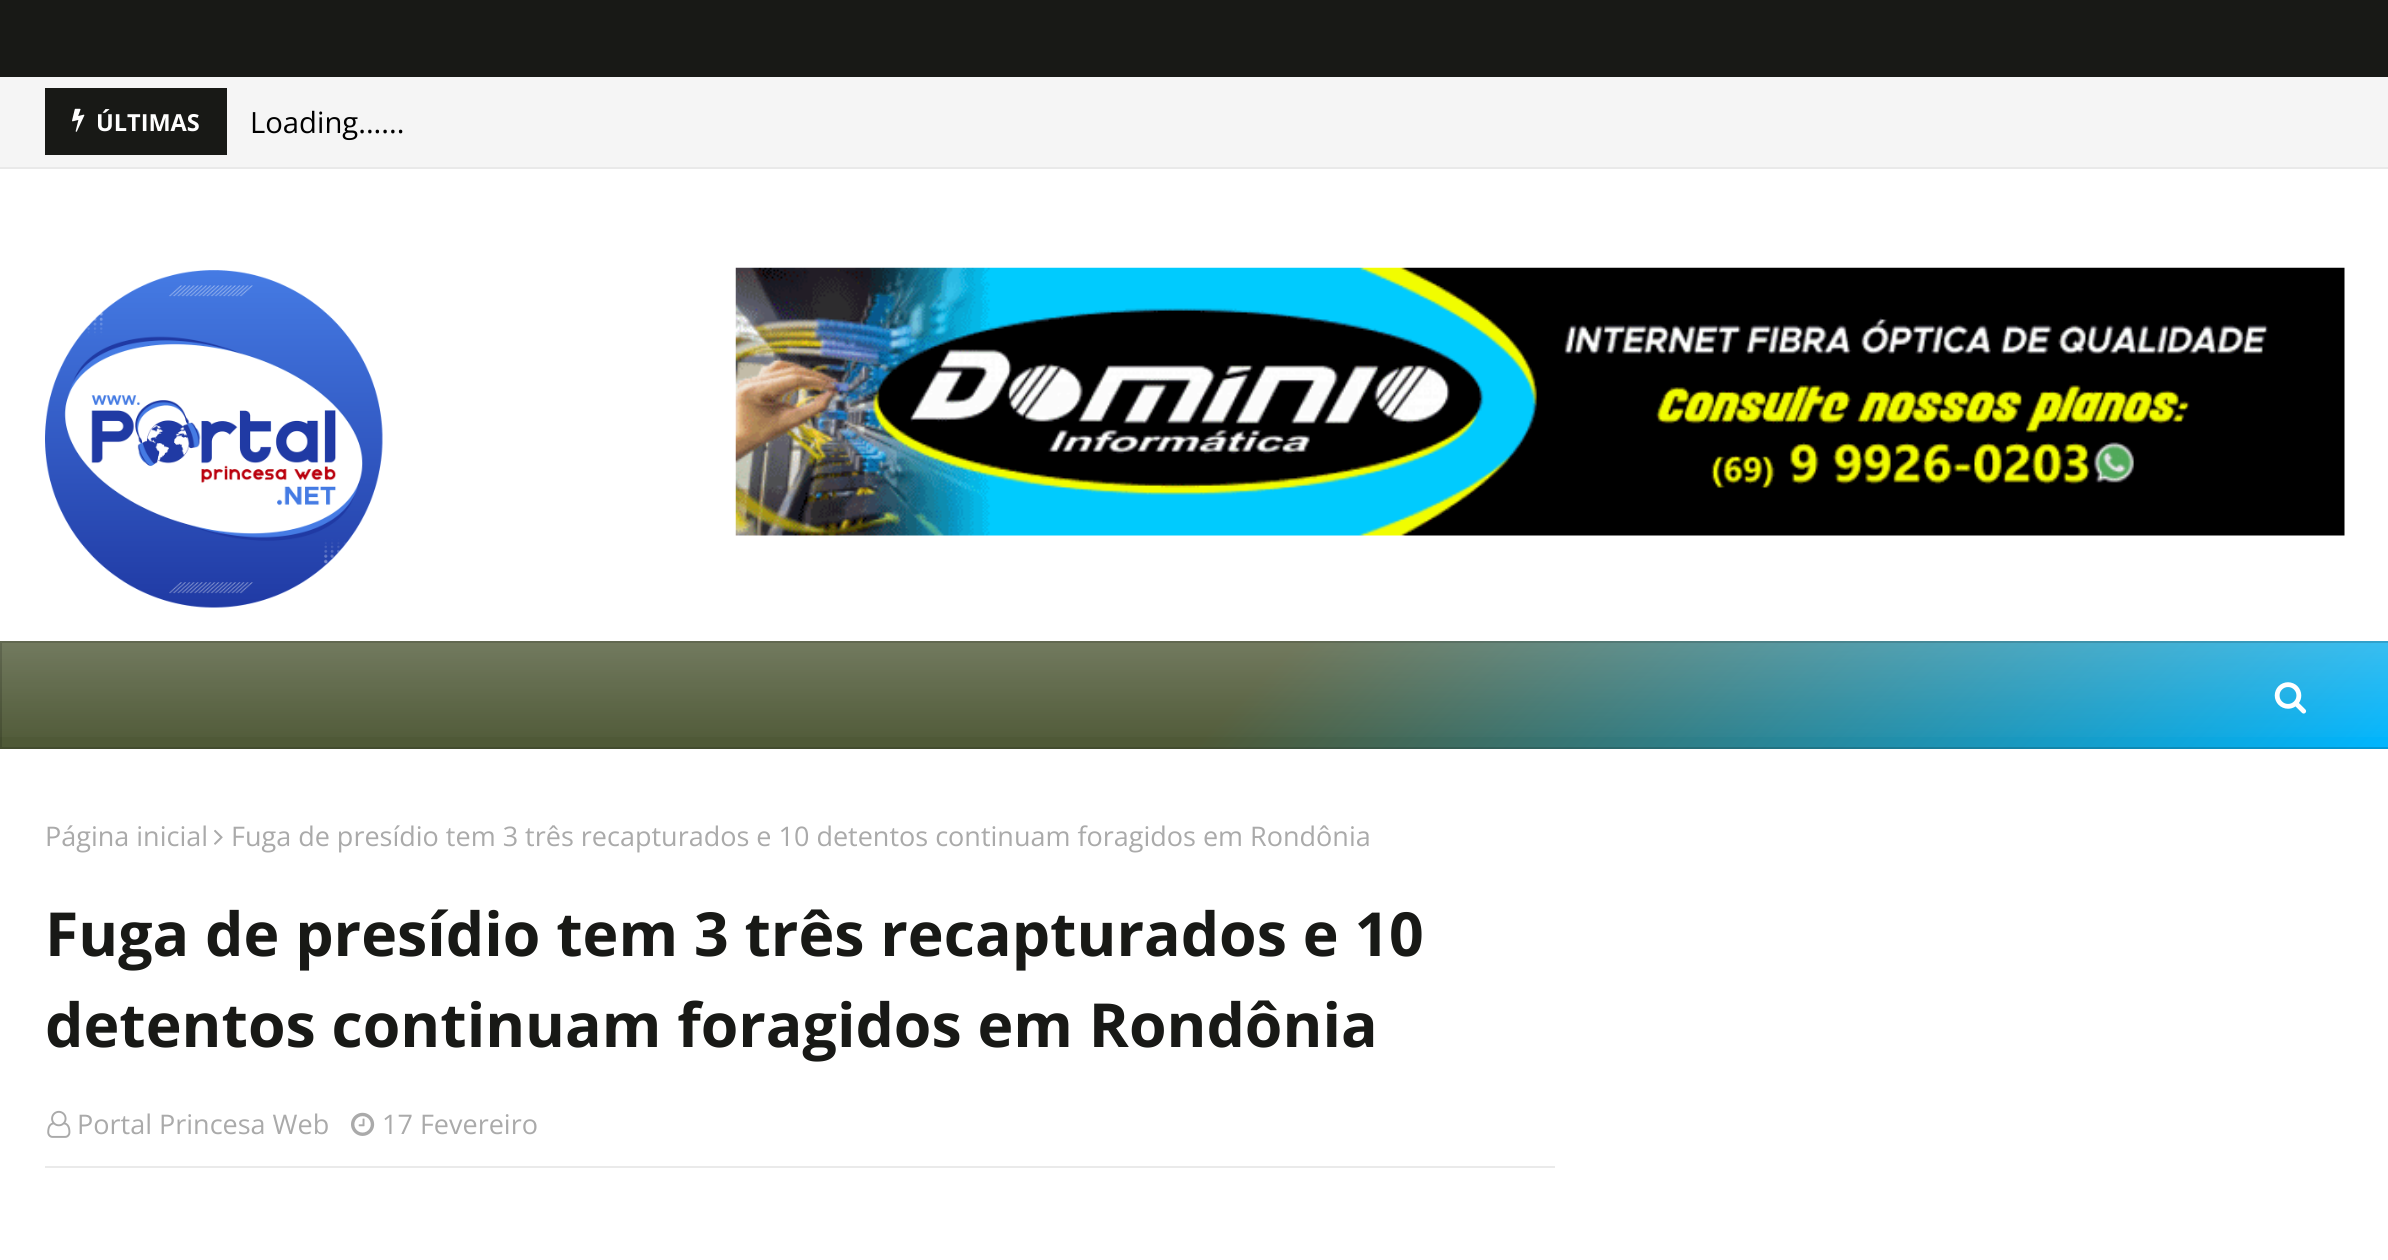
import math
import cairo



def draw_image(context, path, x, y, w, h):
    context.save()
    context.set_source_surface(cairo.ImageSurface.create_from_png(path), x, y)
    context.rectangle(x, y, w, h)
    context.fill()
    context.restore()


def draw(context):
    context.set_source_rgb(1, 1, 1)
    context.paint()
    context.set_source_rgb(24 / 255, 25 / 255, 22 / 255)
    context.rectangle(0, 0, 2388, 77)
    context.fill()
    context.set_source_rgb(245 / 255, 245 / 255, 245 / 255)
    context.rectangle(0, 77, 2388, 90)
    context.fill()
    context.set_source_rgb(233 / 255, 233 / 255, 233 / 255)
    context.rectangle(0, 167, 2388, 2)
    context.fill()
    context.set_source_rgb(24 / 255, 25 / 255, 22 / 255)
    context.rectangle(45, 88, 182, 67)
    context.fill()
    draw_image(context, "images/1.png", 72, 108, 13, 24)
    draw_image(context, "images/2.png", 45, 270, 338, 338)
    draw_image(context, "images/3.png", 735, 267, 1610, 269)
    gradient = cairo.LinearGradient(570, 71, 1819, 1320)
    gradient.add_color_stop_rgba(0.52, 79 / 255, 89 / 255, 55 / 255, 1)
    gradient.add_color_stop_rgba(1, 0, 182 / 255, 1, 1)
    context.set_source(gradient)
    context.rectangle(0, 641, 2388, 108)
    context.fill()
    gradient = cairo.LinearGradient(1195, 641, 1195, 749)
    gradient.add_color_stop_rgba(0, 1, 1, 1, 0.2)
    gradient.add_color_stop_rgba(1, 1, 1, 1, 0)
    context.set_source(gradient)
    context.rectangle(0, 641, 2388, 96)
    context.fill()
    context.rectangle(1, 642, 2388, 106)
    context.set_source_rgba(0, 0, 0, 0.15)
    context.stroke()
    draw_image(context, "images/4.png", 2274, 682, 33, 32)
    draw_image(context, "images/5.png", 214, 829, 9, 16)
    context.set_source_rgb(234 / 255, 234 / 255, 234 / 255)
    context.rectangle(45, 1166, 1510, 2)
    context.fill()
    draw_image(context, "images/6.png", 47, 1110, 24, 28)
    draw_image(context, "images/7.png", 351, 1112, 24, 24)
    context.select_font_face("Open Sans", cairo.FontSlant.NORMAL, cairo.FontWeight.BOLD)
    context.set_font_size(23.5)
    context.set_source_rgb(1, 1, 1)
    context.move_to(96, 131)
    context.show_text("ÚLTIMAS")
    context.select_font_face("Open Sans")
    context.set_font_size(29.25)
    context.set_source_rgb(0, 0, 0)
    context.move_to(250, 133)
    context.show_text("Loading......")
    context.set_font_size(27)
    context.set_source_rgb(170 / 255, 170 / 255, 170 / 255)
    context.move_to(45, 846)
    context.show_text("Página inicial")
    context.move_to(231, 846)
    context.show_text("Fuga de presídio tem 3 três recapturados e 10 detentos continuam foragidos em Rondônia")
    context.select_font_face("Open Sans", cairo.FontSlant.NORMAL, cairo.FontWeight.BOLD)
    context.set_font_size(60.75)
    context.set_source_rgb(24 / 255, 25 / 255, 22 / 255)
    context.move_to(45, 956)
    context.show_text("Fuga de presídio tem 3 três recapturados e 10")
    context.move_to(45, 1047)
    context.show_text("detentos continuam foragidos em Rondônia")
    context.select_font_face("Open Sans")
    context.set_font_size(27)
    context.set_source_rgb(170 / 255, 170 / 255, 170 / 255)
    context.move_to(77, 1134)
    context.show_text("Portal Princesa Web")
    context.move_to(382, 1134)
    context.show_text("17 Fevereiro")


surface = cairo.ImageSurface(cairo.Format.RGB24, 2388, 1260)
context = cairo.Context(surface)
options = cairo.FontOptions()
options.set_hint_metrics(cairo.HintMetrics.OFF)
options.set_hint_style(cairo.HintStyle.NONE)
context.set_font_options(options)
context.set_miter_limit(4)
draw(context)
surface.write_to_png("out.png")
